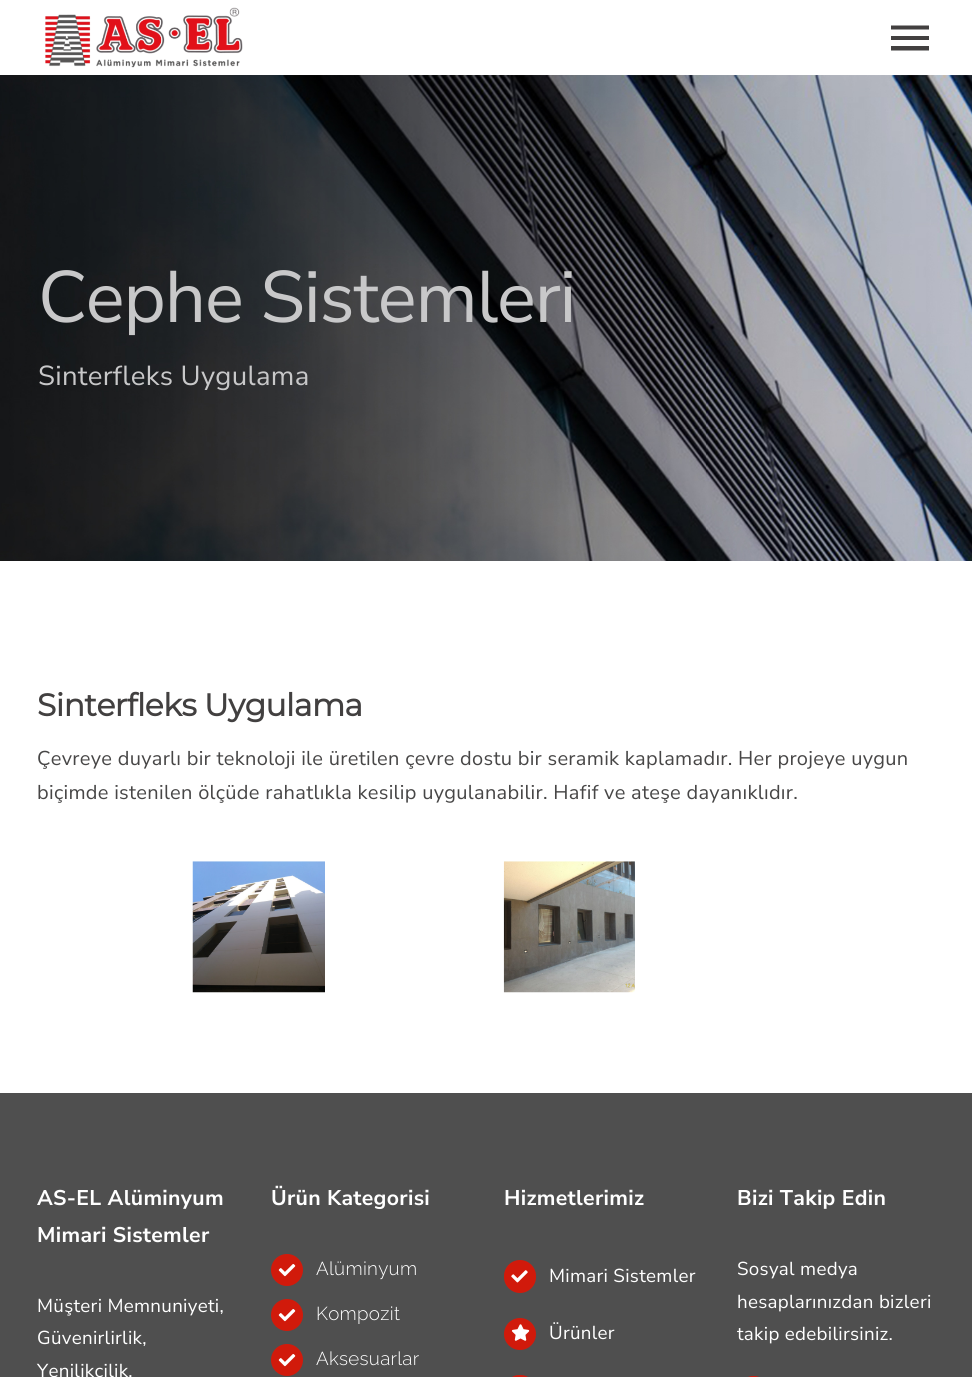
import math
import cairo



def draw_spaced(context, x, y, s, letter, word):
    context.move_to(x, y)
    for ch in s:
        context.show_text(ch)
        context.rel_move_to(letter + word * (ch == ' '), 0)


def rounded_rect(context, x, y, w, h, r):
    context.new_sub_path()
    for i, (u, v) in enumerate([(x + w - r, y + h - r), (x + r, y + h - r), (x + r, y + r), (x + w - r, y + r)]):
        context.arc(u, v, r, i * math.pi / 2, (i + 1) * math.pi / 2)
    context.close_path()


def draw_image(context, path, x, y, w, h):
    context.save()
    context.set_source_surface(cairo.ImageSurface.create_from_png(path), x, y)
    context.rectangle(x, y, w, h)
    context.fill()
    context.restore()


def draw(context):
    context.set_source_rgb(1, 1, 1)
    context.paint()
    draw_image(context, "images/1.png", 45, 7, 198, 61)
    context.set_source_rgb(66 / 255, 64 / 255, 64 / 255)
    context.new_path()
    context.move_to(891, 25.5)
    context.line_to(929, 25.5)
    context.line_to(929, 29.5)
    context.line_to(891, 29.5)
    context.close_path()
    context.move_to(891, 40)
    context.line_to(891, 36)
    context.line_to(929, 36)
    context.line_to(929, 40)
    context.close_path()
    context.move_to(891, 50.5)
    context.line_to(891, 46)
    context.line_to(929, 46)
    context.line_to(929, 50.5)
    context.close_path()
    context.fill()
    draw_image(context, "images/2.png", 0, 75, 972, 486)
    draw_image(context, "images/3.png", 192, 861, 133, 132)
    draw_image(context, "images/4.png", 503, 861, 132, 132)
    context.set_source_rgb(79 / 255, 79 / 255, 79 / 255)
    context.rectangle(0, 1093, 972, 284)
    context.fill()
    context.set_source_rgb(209 / 255, 26 / 255, 11 / 255)
    context.arc(287, 1270, 16, 0, 2 * math.pi)
    context.fill()
    draw_image(context, "images/5.png", 278, 1264, 18, 13)
    context.arc(287, 1315, 16, 0, 2 * math.pi)
    context.fill()
    draw_image(context, "images/5.png", 278, 1309, 18, 13)
    context.arc(287, 1360, 16, 0, 2 * math.pi)
    context.fill()
    draw_image(context, "images/5.png", 278, 1354, 18, 13)
    rounded_rect(context, 504, 1260, 32, 33, 16)
    context.fill()
    draw_image(context, "images/6.png", 511, 1270, 17, 13)
    context.arc(520, 1334, 16, 0, 2 * math.pi)
    context.fill()
    draw_image(context, "images/7.png", 511, 1324, 19, 17)
    rounded_rect(context, 504, 1375, 32, 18, 15.5)
    context.fill()
    rounded_rect(context, 738, 1376, 31, 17, 15.5)
    context.fill()
    context.select_font_face("Nunito Sans")
    context.set_font_size(72.75)
    context.set_source_rgb(200 / 255, 200 / 255, 201 / 255)
    draw_spaced(context, 38, 322, "Cephe Sistemleri", -1.1, 0)
    context.set_font_size(27.5)
    draw_spaced(context, 38, 385, "Sinterfleks Uygulama", 0.3, 0)
    context.select_font_face("Montserrat", cairo.FontSlant.NORMAL, cairo.FontWeight.BOLD)
    context.set_font_size(31.25)
    context.set_source_rgb(66 / 255, 64 / 255, 64 / 255)
    draw_spaced(context, 37, 716, "Sinterfleks Uygulama", -0.5, 0)
    context.select_font_face("Nunito Sans")
    context.set_font_size(20)
    context.set_source_rgb(71 / 255, 70 / 255, 70 / 255)
    draw_spaced(context, 37, 765, "Çevreye duyarlı bir teknoloji ile üretilen çevre dostu bir seramik kaplamadır. Her projeye uygun", 0.3, 0)
    draw_spaced(context, 37, 799, "biçimde istenilen ölçüde rahatlıkla kesilip uygulanabilir. Hafif ve ateşe dayanıklıdır.", 0.3, 0)
    context.select_font_face("Nunito Sans", cairo.FontSlant.NORMAL, cairo.FontWeight.BOLD)
    context.set_font_size(21.25)
    context.set_source_rgb(1, 1, 1)
    draw_spaced(context, 37, 1205, "AS-EL Alüminyum", 0.3, 0)
    draw_spaced(context, 37, 1242, "Mimari Sistemler", 0.3, 0)
    context.select_font_face("Nunito Sans")
    context.set_font_size(18.75)
    draw_spaced(context, 37, 1312, "Müşteri Memnuniyeti,", 0.3, 0)
    draw_spaced(context, 37, 1344, "Güvenirlirlik,", 0.3, 0)
    draw_spaced(context, 37, 1377, "Yenilikçilik,", 0.3, 0)
    context.select_font_face("Nunito Sans", cairo.FontSlant.NORMAL, cairo.FontWeight.BOLD)
    context.set_font_size(21.25)
    draw_spaced(context, 271, 1205, "Ürün Kategorisi", 0.3, 0)
    context.select_font_face("Raleway Light")
    context.set_font_size(18.75)
    draw_spaced(context, 316, 1275, "Alüminyum", 0.3, 0)
    draw_spaced(context, 316, 1320, "Kompozit", 0.3, 0)
    draw_spaced(context, 316, 1365, "Aksesuarlar", 0.3, 0)
    context.select_font_face("Nunito Sans", cairo.FontSlant.NORMAL, cairo.FontWeight.BOLD)
    context.set_font_size(21.25)
    draw_spaced(context, 504, 1205, "Hizmetlerimiz", 0.3, 0)
    context.select_font_face("Nunito Sans")
    context.set_font_size(18.75)
    draw_spaced(context, 549, 1282, "Mimari Sistemler", 0.3, 0)
    draw_spaced(context, 549, 1339, "Ürünler", 0.3, 0)
    context.select_font_face("Nunito Sans", cairo.FontSlant.NORMAL, cairo.FontWeight.BOLD)
    context.set_font_size(21.25)
    draw_spaced(context, 737, 1205, "Bizi Takip Edin", 0.3, 0)
    context.select_font_face("Nunito Sans")
    context.set_font_size(18.75)
    draw_spaced(context, 737, 1275, "Sosyal medya", 0.3, 0)
    draw_spaced(context, 737, 1308, "hesaplarınızdan bizleri", 0.3, 0)
    draw_spaced(context, 737, 1340, "takip edebilirsiniz.", 0.3, 0)


surface = cairo.ImageSurface(cairo.Format.RGB24, 972, 1377)
context = cairo.Context(surface)
options = cairo.FontOptions()
options.set_hint_metrics(cairo.HintMetrics.OFF)
options.set_hint_style(cairo.HintStyle.NONE)
context.set_font_options(options)
context.set_miter_limit(4)
draw(context)
surface.write_to_png("out.png")
